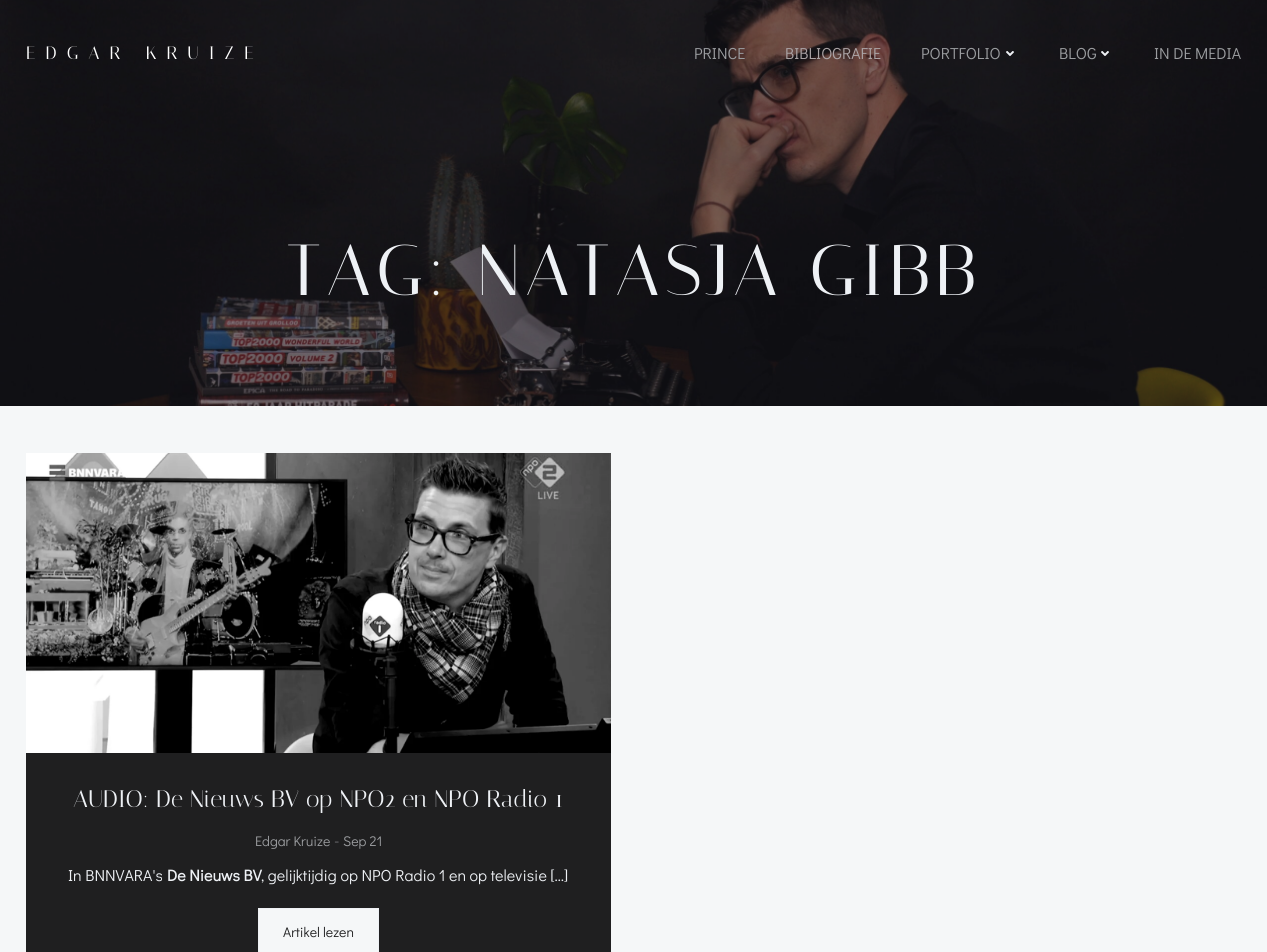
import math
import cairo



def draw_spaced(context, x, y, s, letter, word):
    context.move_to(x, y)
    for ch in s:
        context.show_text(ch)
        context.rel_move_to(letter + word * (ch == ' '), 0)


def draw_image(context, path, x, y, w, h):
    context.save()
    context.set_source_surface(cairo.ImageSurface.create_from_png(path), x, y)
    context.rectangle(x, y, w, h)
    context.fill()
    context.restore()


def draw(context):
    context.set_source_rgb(1, 1, 1)
    context.paint()
    draw_image(context, "images/3.png", 0, 0, 1267, 406)
    draw_image(context, "images/1.png", 1006, 51, 8, 5)
    draw_image(context, "images/2.png", 1101, 51, 8, 5)
    context.set_source_rgb(245 / 255, 247 / 255, 248 / 255)
    context.rectangle(0, 406, 1267, 546)
    context.fill()
    draw_image(context, "images/4.png", 26, 453, 585, 300)
    context.set_source_rgb(31 / 255, 31 / 255, 32 / 255)
    context.rectangle(26, 753, 585, 199)
    context.fill()
    context.set_source_rgb(245 / 255, 247 / 255, 248 / 255)
    context.rectangle(258.5, 908.5, 120, 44)
    context.fill_preserve()
    context.set_source_rgb(238 / 255, 241 / 255, 245 / 255)
    context.set_line_width(1)
    context.stroke()
    context.select_font_face("Italiana")
    context.set_font_size(18)
    context.set_source_rgb(1, 1, 1)
    draw_spaced(context, 26, 59, "EDGAR KRUIZE", 10, 0)
    context.select_font_face("Didact Gothic")
    context.set_font_size(16)
    context.set_source_rgb(155 / 255, 157 / 255, 160 / 255)
    context.move_to(694, 59)
    context.show_text("PRINCE")
    context.set_source_rgb(171 / 255, 164 / 255, 166 / 255)
    context.move_to(785, 59)
    context.show_text("BIBLIOGRAFIE")
    context.set_source_rgb(155 / 255, 157 / 255, 160 / 255)
    context.move_to(921, 59)
    context.show_text("PORTFOLIO")
    context.move_to(1059, 59)
    context.show_text("BLOG")
    context.move_to(1154, 59)
    context.show_text("IN DE MEDIA")
    context.select_font_face("Italiana")
    context.set_font_size(72)
    context.set_source_rgb(238 / 255, 241 / 255, 245 / 255)
    draw_spaced(context, 286, 295, "TAG: NATASJA GIBB", 5, 0)
    context.set_font_size(24)
    context.move_to(73, 807)
    context.show_text("AUDIO: De Nieuws BV op NPO2 en NPO Radio 1")
    context.select_font_face("Didact Gothic")
    context.set_font_size(14)
    context.set_source_rgb(155 / 255, 157 / 255, 160 / 255)
    context.move_to(255, 846)
    context.show_text("Edgar Kruize")
    context.set_font_size(16)
    context.set_source_rgb(113 / 255, 113 / 255, 117 / 255)
    context.move_to(334, 846)
    context.show_text("-")
    context.set_font_size(14)
    context.set_source_rgb(155 / 255, 157 / 255, 160 / 255)
    context.move_to(343, 846)
    context.show_text("Sep 21")
    context.set_font_size(16)
    context.set_source_rgb(238 / 255, 241 / 255, 245 / 255)
    context.move_to(68, 881)
    context.show_text("In BNNVARA's")
    context.select_font_face("Didact Gothic", cairo.FontSlant.NORMAL, cairo.FontWeight.BOLD)
    context.move_to(167, 881)
    context.show_text("De Nieuws BV")
    context.select_font_face("Didact Gothic")
    context.move_to(261, 881)
    context.show_text(", gelijktijdig op NPO Radio 1 en op televisie […]")
    context.set_font_size(14)
    context.set_source_rgb(31 / 255, 31 / 255, 32 / 255)
    context.move_to(283, 937)
    context.show_text("Artikel lezen")


surface = cairo.ImageSurface(cairo.Format.RGB24, 1267, 952)
context = cairo.Context(surface)
options = cairo.FontOptions()
options.set_hint_metrics(cairo.HintMetrics.OFF)
options.set_hint_style(cairo.HintStyle.NONE)
context.set_font_options(options)
context.set_miter_limit(4)
draw(context)
surface.write_to_png("out.png")
